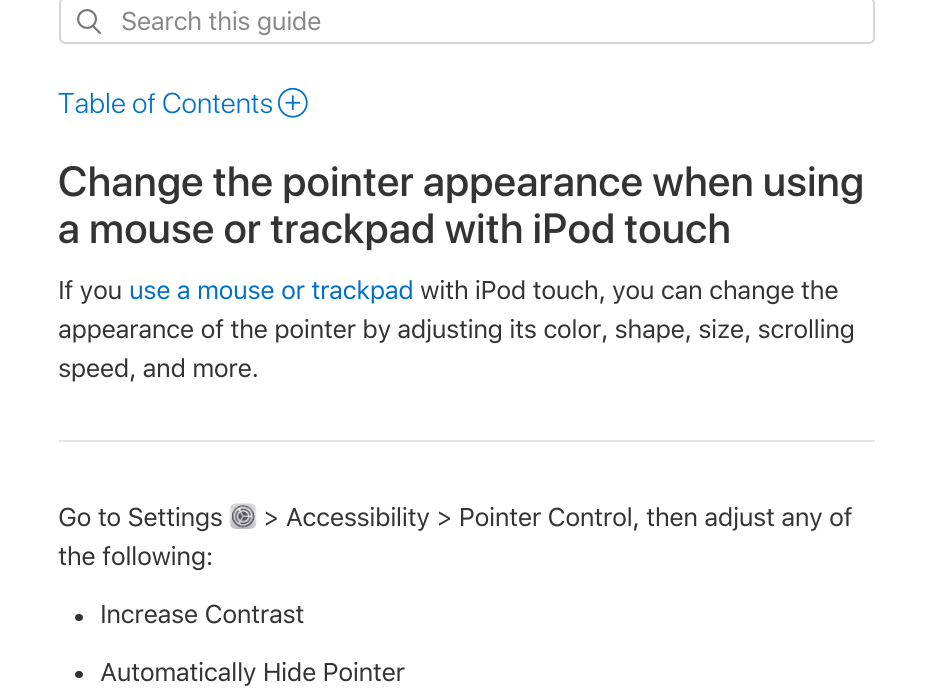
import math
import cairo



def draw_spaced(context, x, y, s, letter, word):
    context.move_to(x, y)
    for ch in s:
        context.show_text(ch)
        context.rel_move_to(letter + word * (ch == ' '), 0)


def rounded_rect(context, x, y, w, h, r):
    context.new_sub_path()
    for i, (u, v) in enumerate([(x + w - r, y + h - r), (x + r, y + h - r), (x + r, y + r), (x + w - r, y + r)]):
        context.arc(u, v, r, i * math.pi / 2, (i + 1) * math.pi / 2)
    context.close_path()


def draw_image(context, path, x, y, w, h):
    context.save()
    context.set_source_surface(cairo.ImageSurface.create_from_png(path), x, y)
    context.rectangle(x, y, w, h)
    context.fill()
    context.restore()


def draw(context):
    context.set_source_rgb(1, 1, 1)
    context.paint()
    rounded_rect(context, 60, -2, 814, 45, 5)
    context.set_source_rgb(214 / 255, 214 / 255, 214 / 255)
    context.stroke()
    draw_image(context, "images/1.png", 77, 9, 25, 26)
    draw_image(context, "images/2.png", 277, 87, 31, 31)
    context.set_source_rgb(230 / 255, 230 / 255, 230 / 255)
    context.rectangle(59, 440, 816, 2)
    context.fill()
    draw_image(context, "images/3.png", 229, 503, 28, 26)
    context.set_source_rgb(51 / 255, 51 / 255, 51 / 255)
    rounded_rect(context, 75, 614, 8, 7, 3.5)
    context.fill()
    rounded_rect(context, 75, 671, 8, 7, 3.5)
    context.fill()
    context.select_font_face("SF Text")
    context.set_font_size(25.5)
    context.set_source_rgb(136 / 255, 136 / 255, 136 / 255)
    draw_spaced(context, 121, 30, "Search this guide", -0.55, 0)
    context.select_font_face("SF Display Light")
    context.set_font_size(28.5)
    context.set_source_rgb(0, 112 / 255, 201 / 255)
    draw_spaced(context, 58, 113, "Table of Contents", 0.5, 0)
    context.select_font_face("SF Display Medium")
    context.set_font_size(42)
    context.set_source_rgb(51 / 255, 51 / 255, 51 / 255)
    draw_spaced(context, 58, 196, "Change the pointer appearance when using", 0.5, 0)
    draw_spaced(context, 58, 243, "a mouse or trackpad with iPod touch", 0.5, 0)
    context.select_font_face("SF Text")
    context.set_font_size(25.5)
    draw_spaced(context, 58, 299, "If you", -0.55, 0)
    context.set_source_rgb(0, 112 / 255, 201 / 255)
    draw_spaced(context, 129, 299, "use a mouse or trackpad", -0.55, 0)
    context.set_source_rgb(51 / 255, 51 / 255, 51 / 255)
    draw_spaced(context, 420, 299, "with iPod touch, you can change the", -0.55, 0)
    draw_spaced(context, 58, 338, "appearance of the pointer by adjusting its color, shape, size, scrolling", -0.55, 0)
    draw_spaced(context, 58, 377, "speed, and more.", -0.55, 0)
    draw_spaced(context, 58, 526, "Go to Settings", -0.55, 0)
    draw_spaced(context, 263, 526, "> Accessibility > Pointer Control, then adjust any of", -0.55, 0)
    draw_spaced(context, 58, 565, "the following:", -0.55, 0)
    draw_spaced(context, 100, 623, "Increase Contrast", -0.55, 0)
    draw_spaced(context, 100, 681, "Automatically Hide Pointer", -0.55, 0)


surface = cairo.ImageSurface(cairo.Format.RGB24, 933, 688)
context = cairo.Context(surface)
options = cairo.FontOptions()
options.set_hint_metrics(cairo.HintMetrics.OFF)
options.set_hint_style(cairo.HintStyle.NONE)
context.set_font_options(options)
context.set_miter_limit(4)
draw(context)
surface.write_to_png("out.png")
